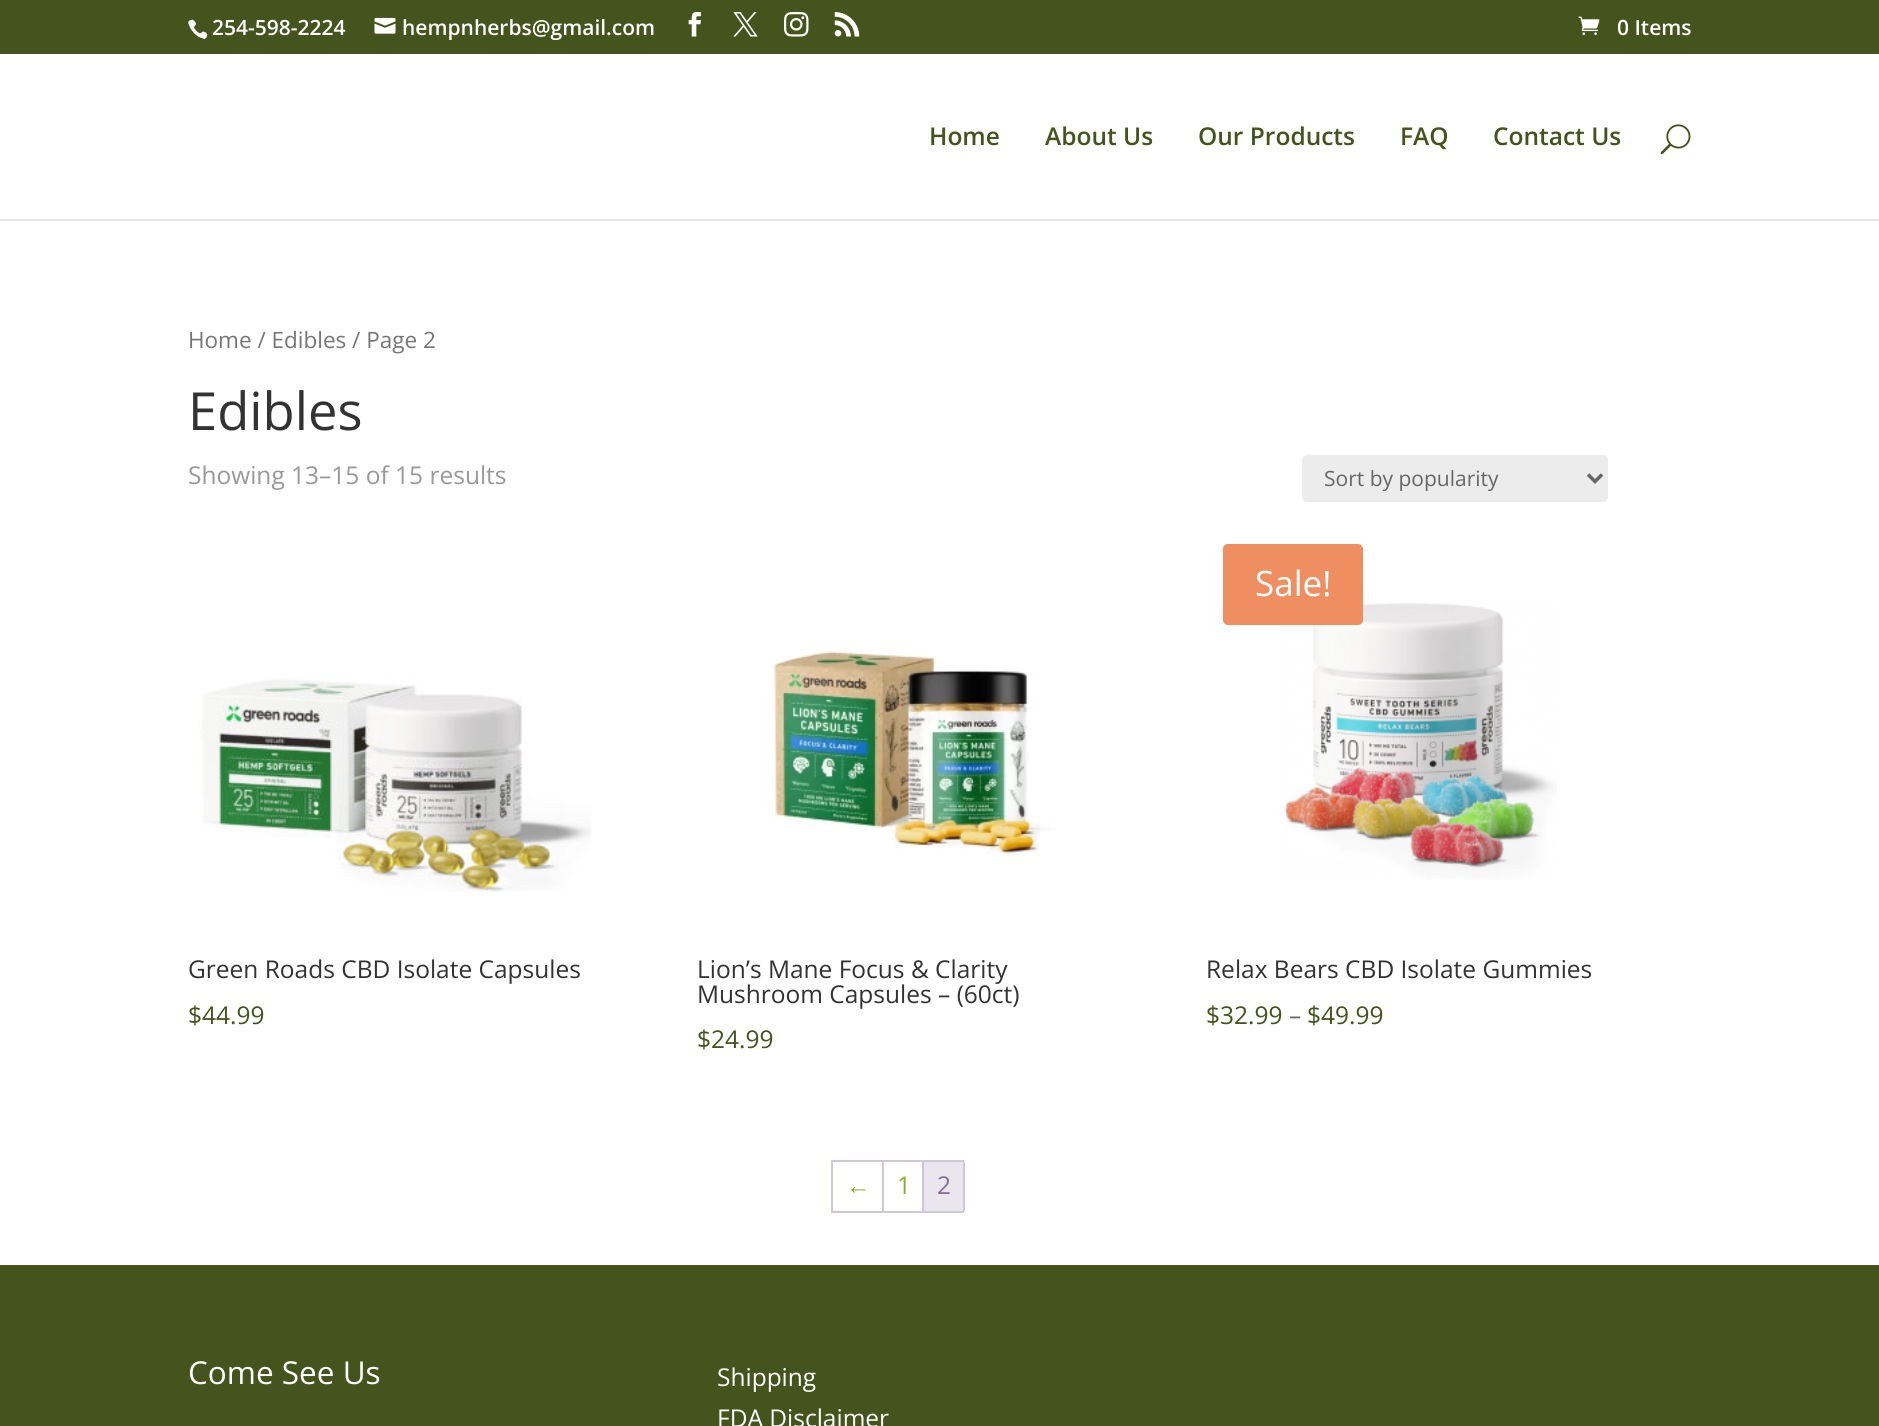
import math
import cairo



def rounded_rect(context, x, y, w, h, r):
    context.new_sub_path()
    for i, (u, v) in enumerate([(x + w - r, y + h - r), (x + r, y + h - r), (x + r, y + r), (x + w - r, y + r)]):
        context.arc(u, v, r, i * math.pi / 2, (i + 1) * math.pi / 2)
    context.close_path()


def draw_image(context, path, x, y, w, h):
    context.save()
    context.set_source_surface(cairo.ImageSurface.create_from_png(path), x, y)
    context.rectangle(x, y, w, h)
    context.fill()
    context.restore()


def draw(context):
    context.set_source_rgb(1, 1, 1)
    context.paint()
    context.set_source_rgb(69 / 255, 83 / 255, 29 / 255)
    context.rectangle(0, 0, 1879, 54)
    context.fill()
    draw_image(context, "images/1.png", 188, 19, 20, 20)
    draw_image(context, "images/2.png", 374, 17, 22, 17)
    draw_image(context, "images/3.png", 688, 12, 13, 25)
    draw_image(context, "images/4.png", 733, 12, 25, 25)
    draw_image(context, "images/5.png", 784, 12, 25, 25)
    draw_image(context, "images/6.png", 834, 12, 26, 25)
    draw_image(context, "images/7.png", 1578, 16, 22, 19)
    context.set_source_rgb(230 / 255, 230 / 255, 230 / 255)
    context.new_path()
    context.move_to(0, 219)
    context.line_to(0, 221)
    context.line_to(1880, 221)
    context.line_to(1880, 56)
    context.line_to(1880, 219)
    context.close_path()
    context.fill()
    draw_image(context, "images/8.png", 1660, 124, 31, 31)
    context.set_source_rgb(236 / 255, 236 / 255, 236 / 255)
    rounded_rect(context, 1302, 455, 306, 47, 5)
    context.fill()
    context.new_path()
    context.move_to(1588, 474.5)
    context.line_to(1595, 481.5)
    context.line_to(1602, 474.5)
    context.set_source_rgb(102 / 255, 102 / 255, 102 / 255)
    context.set_line_width(3.5)
    context.stroke()
    draw_image(context, "images/9.png", 198, 677, 394, 215)
    draw_image(context, "images/10.png", 772, 651, 284, 208)
    draw_image(context, "images/11.png", 1284, 603, 273, 277)
    context.set_source_rgb(239 / 255, 143 / 255, 97 / 255)
    rounded_rect(context, 1223, 544, 140, 81, 5)
    context.fill()
    context.set_source_rgb(207 / 255, 200 / 255, 216 / 255)
    context.rectangle(831, 1160, 133, 2)
    context.fill()
    context.rectangle(831, 1211, 133, 2)
    context.fill()
    context.rectangle(831, 1160, 2, 53)
    context.fill()
    context.rectangle(882, 1162, 2, 49)
    context.fill()
    context.rectangle(922, 1162, 2, 49)
    context.fill()
    context.rectangle(963, 1162, 2, 49)
    context.fill()
    context.set_source_rgb(233 / 255, 230 / 255, 237 / 255)
    context.rectangle(924, 1162, 39, 49)
    context.fill()
    context.set_source_rgb(69 / 255, 83 / 255, 29 / 255)
    context.rectangle(0, 1265, 1879, 161)
    context.fill()
    context.select_font_face("Open Sans SemiBold")
    context.set_font_size(21)
    context.set_source_rgb(1, 1, 1)
    context.move_to(212, 35)
    context.show_text("254-598-2224")
    context.move_to(402, 35)
    context.show_text("hempnherbs@gmail.com")
    context.move_to(1617, 35)
    context.show_text("0 Items")
    context.set_font_size(24.5)
    context.set_source_rgb(69 / 255, 83 / 255, 29 / 255)
    context.move_to(929, 145)
    context.show_text("Home")
    context.move_to(1045, 145)
    context.show_text("About Us")
    context.move_to(1198, 145)
    context.show_text("Our Products")
    context.move_to(1400, 145)
    context.show_text("FAQ")
    context.move_to(1493, 145)
    context.show_text("Contact Us")
    context.select_font_face("Open Sans")
    context.set_font_size(22.5)
    context.set_source_rgb(118 / 255, 118 / 255, 118 / 255)
    context.move_to(188, 348)
    context.show_text("Home / Edibles / Page 2")
    context.set_font_size(52.5)
    context.set_source_rgb(51 / 255, 51 / 255, 51 / 255)
    context.move_to(188, 430)
    context.show_text("Edibles")
    context.set_font_size(24.5)
    context.set_source_rgb(153 / 255, 153 / 255, 153 / 255)
    context.move_to(188, 484)
    context.show_text("Showing 13–15 of 15 results")
    context.set_font_size(21)
    context.set_source_rgb(102 / 255, 102 / 255, 102 / 255)
    context.move_to(1324, 486)
    context.show_text("Sort by popularity")
    context.set_font_size(24.5)
    context.set_source_rgb(51 / 255, 51 / 255, 51 / 255)
    context.move_to(188, 978)
    context.show_text("Green Roads CBD Isolate Capsules")
    context.set_source_rgb(69 / 255, 83 / 255, 29 / 255)
    context.move_to(188, 1024)
    context.show_text("$44.99")
    context.set_source_rgb(51 / 255, 51 / 255, 51 / 255)
    context.move_to(697, 978)
    context.show_text("Lion’s Mane Focus & Clarity")
    context.move_to(697, 1003)
    context.show_text("Mushroom Capsules – (60ct)")
    context.set_source_rgb(69 / 255, 83 / 255, 29 / 255)
    context.move_to(697, 1048)
    context.show_text("$24.99")
    context.set_font_size(35)
    context.set_source_rgb(1, 1, 1)
    context.move_to(1255, 596)
    context.show_text("Sale!")
    context.set_font_size(24.5)
    context.set_source_rgb(51 / 255, 51 / 255, 51 / 255)
    context.move_to(1206, 978)
    context.show_text("Relax Bears CBD Isolate Gummies")
    context.set_source_rgb(69 / 255, 83 / 255, 29 / 255)
    context.move_to(1206, 1024)
    context.show_text("$32.99")
    context.set_source_rgb(102 / 255, 102 / 255, 102 / 255)
    context.move_to(1289, 1024)
    context.show_text("–")
    context.set_source_rgb(69 / 255, 83 / 255, 29 / 255)
    context.move_to(1307, 1024)
    context.show_text("$49.99")
    context.select_font_face("Liberation Sans")
    context.set_source_rgb(139 / 255, 172 / 255, 44 / 255)
    context.move_to(846, 1194)
    context.show_text("←")
    context.select_font_face("Open Sans")
    context.move_to(897, 1194)
    context.show_text("1")
    context.set_source_rgb(129 / 255, 111 / 255, 152 / 255)
    context.move_to(937, 1194)
    context.show_text("2")
    context.set_font_size(31.5)
    context.set_source_rgb(1, 1, 1)
    context.move_to(188, 1384)
    context.show_text("Come See Us")
    context.set_font_size(24.5)
    context.move_to(717, 1386)
    context.show_text("Shipping")
    context.move_to(717, 1427)
    context.show_text("FDA Disclaimer")


surface = cairo.ImageSurface(cairo.Format.RGB24, 1879, 1426)
context = cairo.Context(surface)
options = cairo.FontOptions()
options.set_hint_metrics(cairo.HintMetrics.OFF)
options.set_hint_style(cairo.HintStyle.NONE)
context.set_font_options(options)
context.set_miter_limit(4)
draw(context)
surface.write_to_png("out.png")
